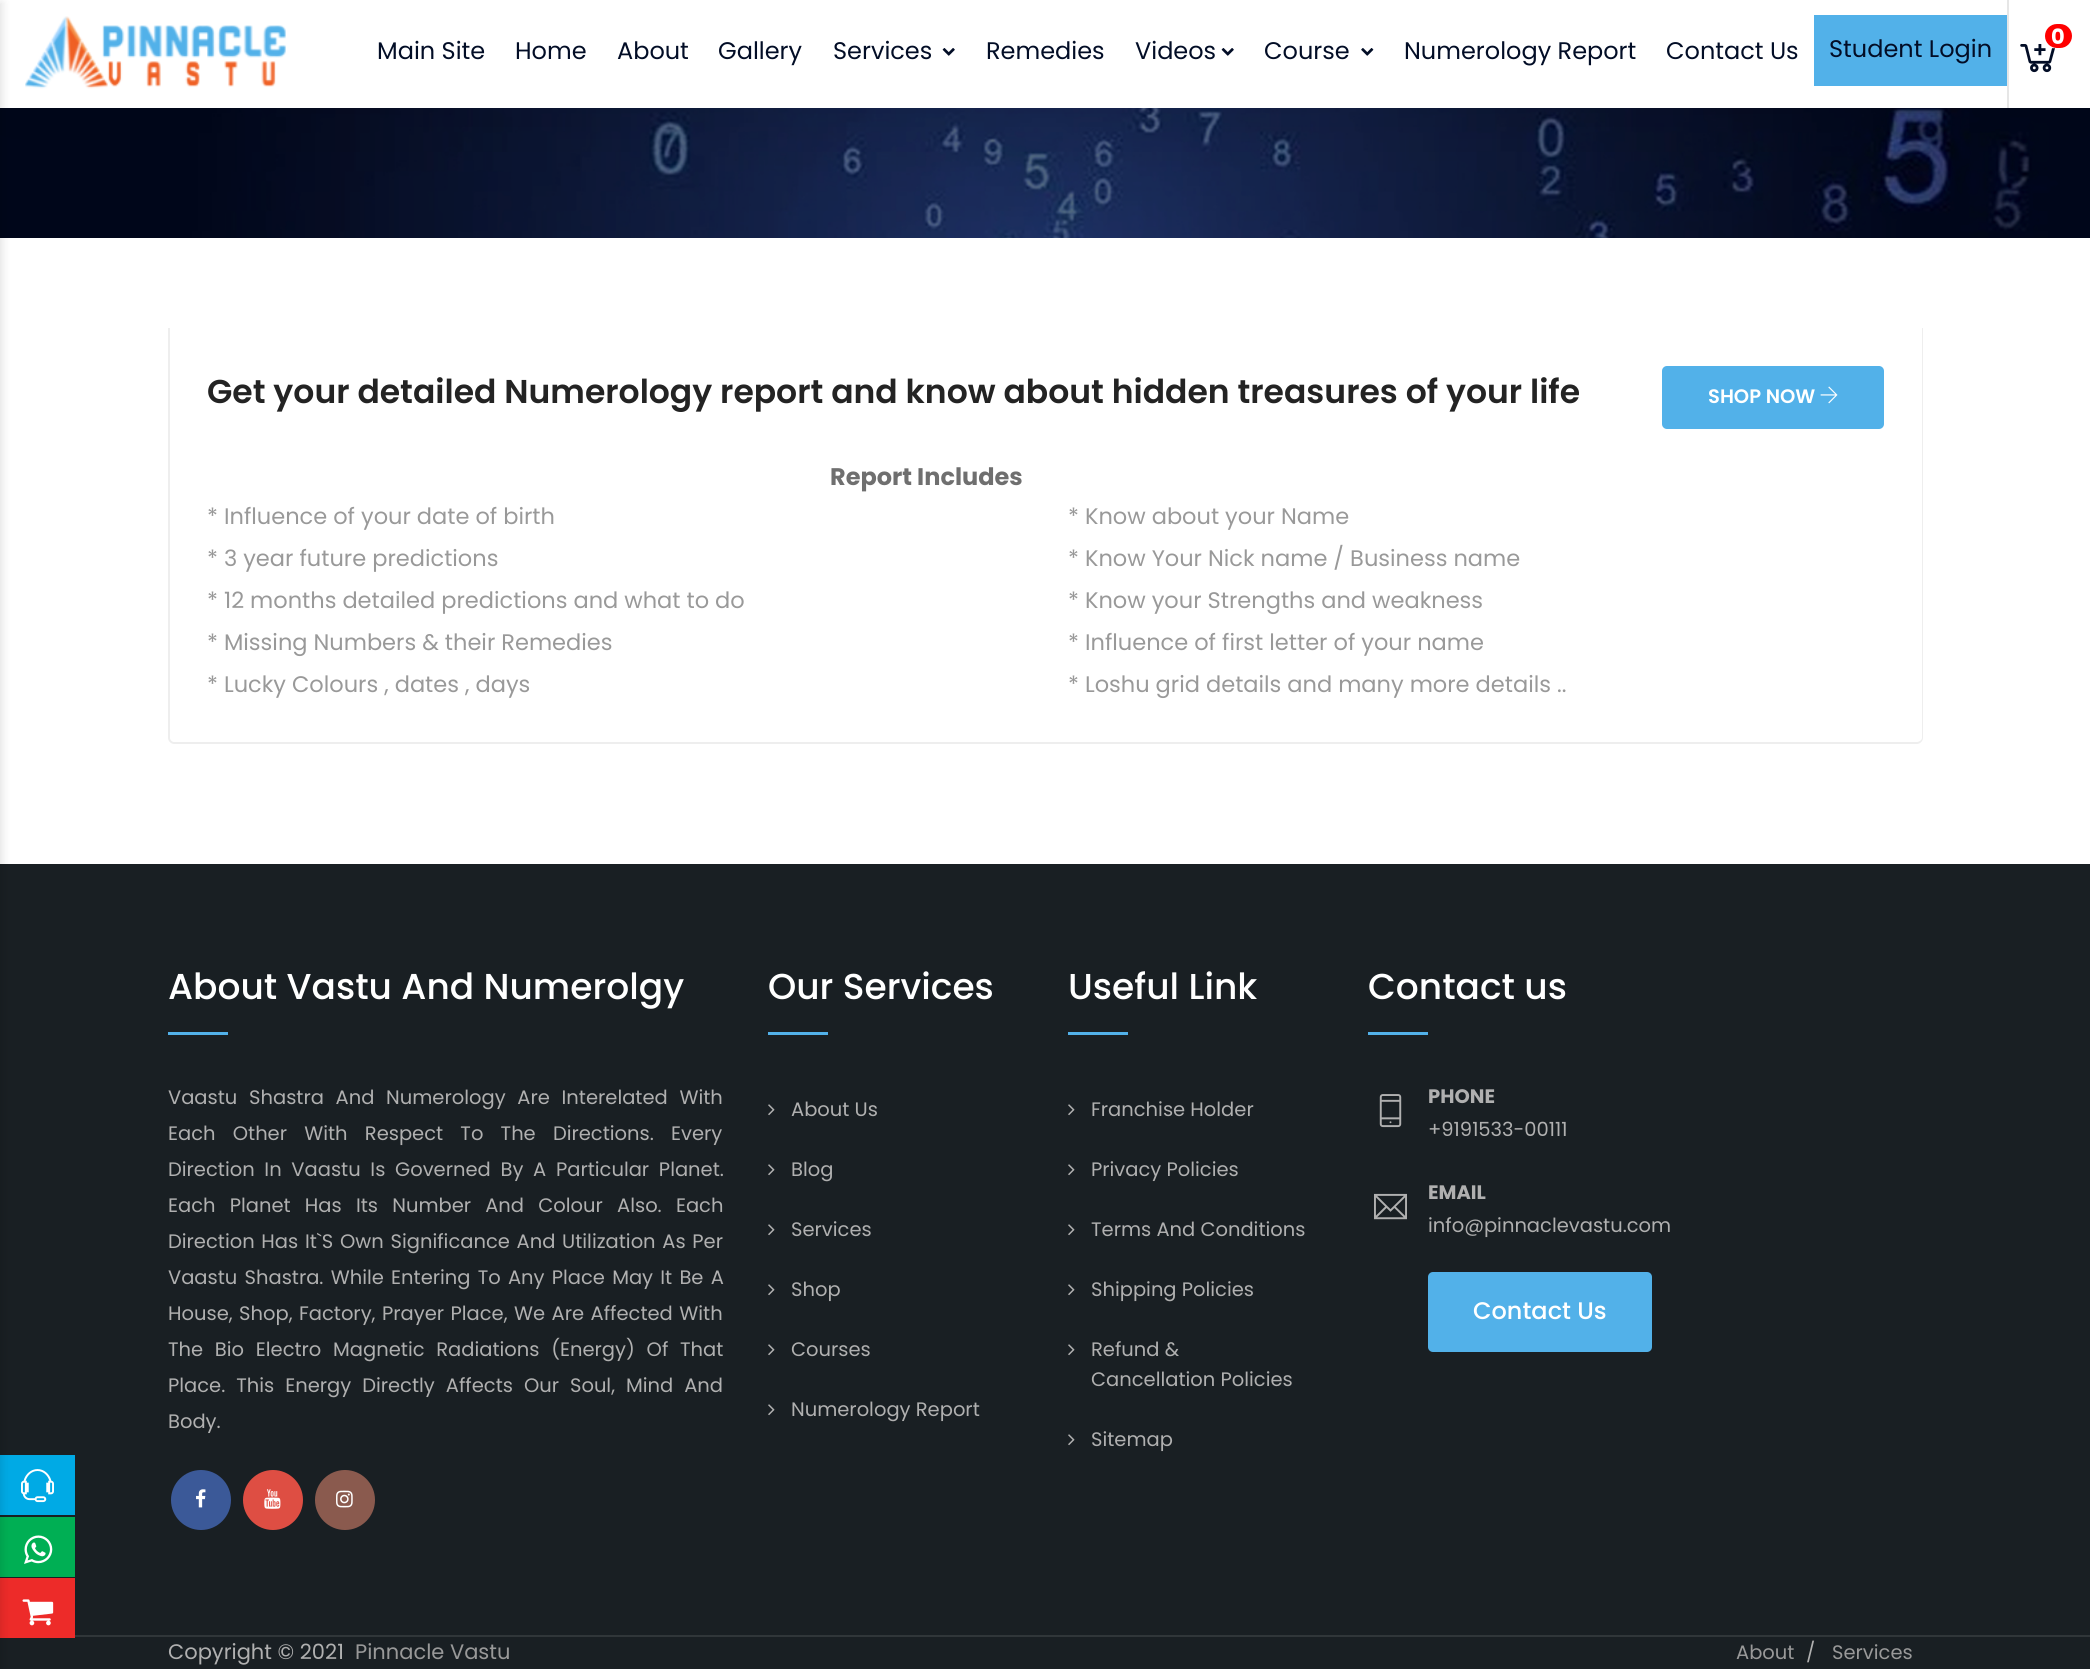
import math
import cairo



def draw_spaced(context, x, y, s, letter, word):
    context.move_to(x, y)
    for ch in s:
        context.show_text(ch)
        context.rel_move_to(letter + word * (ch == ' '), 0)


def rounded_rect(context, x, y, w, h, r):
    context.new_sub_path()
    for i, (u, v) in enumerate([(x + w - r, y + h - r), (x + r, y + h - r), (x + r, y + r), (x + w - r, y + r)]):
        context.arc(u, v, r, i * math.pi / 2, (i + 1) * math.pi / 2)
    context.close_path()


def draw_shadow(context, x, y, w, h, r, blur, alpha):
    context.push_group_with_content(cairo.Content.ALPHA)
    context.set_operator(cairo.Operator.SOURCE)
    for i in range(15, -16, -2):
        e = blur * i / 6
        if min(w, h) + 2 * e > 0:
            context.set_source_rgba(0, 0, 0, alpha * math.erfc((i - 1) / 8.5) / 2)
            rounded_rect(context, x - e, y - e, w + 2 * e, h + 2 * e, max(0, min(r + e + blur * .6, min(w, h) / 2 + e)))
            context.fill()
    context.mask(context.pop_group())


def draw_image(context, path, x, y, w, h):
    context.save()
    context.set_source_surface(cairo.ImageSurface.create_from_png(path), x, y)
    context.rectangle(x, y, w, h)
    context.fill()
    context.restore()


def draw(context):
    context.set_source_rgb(1, 1, 1)
    context.paint()
    draw_image(context, "images/8.png", 0, 108, 2090, 130)
    context.set_source_rgb(0, 0, 0)
    draw_shadow(context, 0, 0, 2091, 108, 0, 37.5, 0.1)
    context.set_source_rgb(1, 1, 1)
    context.rectangle(0, 0, 2090, 108)
    context.fill()
    context.set_source_rgb(25 / 255, 31 / 255, 35 / 255)
    context.rectangle(0, 864, 2090, 771)
    context.fill()
    context.set_source_rgb(0, 170 / 255, 229 / 255)
    context.rectangle(0, 1455, 75, 60)
    context.fill()
    context.set_source_rgb(0, 175 / 255, 84 / 255)
    context.rectangle(0, 1517, 75, 60)
    context.fill()
    context.set_source_rgb(25 / 255, 31 / 255, 35 / 255)
    context.rectangle(0, 1637, 2090, 32)
    context.fill()
    context.set_source_rgb(237 / 255, 43 / 255, 41 / 255)
    context.rectangle(0, 1578, 75, 60)
    context.fill()
    context.set_source_rgb(0, 0, 0)
    draw_shadow(context, -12, 2, 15, 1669, 0, 4, 0.1)
    draw_image(context, "images/1.png", 25, 16, 261, 73)
    context.set_source_rgb(230 / 255, 230 / 255, 230 / 255)
    context.rectangle(2007, 0, 2, 108)
    context.fill()
    draw_image(context, "images/2.png", 2020, 44, 35, 29)
    context.set_source_rgb(1, 0, 0)
    rounded_rect(context, 2045, 24, 27, 24, 12)
    context.fill()
    draw_image(context, "images/3.png", 942, 48, 13, 8)
    draw_image(context, "images/3.png", 1221, 48, 13, 8)
    draw_image(context, "images/4.png", 1361, 48, 13, 8)
    context.set_source_rgb(82 / 255, 177 / 255, 233 / 255)
    context.rectangle(1814, 15, 193, 71)
    context.fill()
    draw_image(context, "images/5.png", 21, 1469, 33, 34)
    draw_image(context, "images/6.png", 24, 1535, 29, 29)
    draw_image(context, "images/7.png", 22, 1599, 32, 27)
    context.set_source_rgb(238 / 255, 238 / 255, 238 / 255)
    context.set_fill_rule(cairo.FillRule.EVEN_ODD)
    context.new_path()
    context.move_to(168, 328)
    context.line_to(1923, 328)
    context.line_to(1923, 738)
    context.curve_to(1923, 741, 1920, 744, 1917, 744)
    context.line_to(174, 744)
    context.curve_to(171, 744, 168, 741, 168, 738)
    context.close_path()
    context.move_to(170, 328)
    context.line_to(1922, 328)
    context.line_to(1922, 738)
    context.curve_to(1922, 740, 1919, 742, 1917, 742)
    context.line_to(174, 742)
    context.curve_to(172, 742, 170, 740, 170, 738)
    context.close_path()
    context.fill()
    context.set_source_rgb(82 / 255, 177 / 255, 233 / 255)
    rounded_rect(context, 1662, 366, 222, 63, 5)
    context.fill()
    draw_image(context, "images/9.png", 1820, 386, 18, 18)
    context.rectangle(168, 1032, 60, 3)
    context.fill()
    context.set_source_rgb(59 / 255, 89 / 255, 152 / 255)
    context.arc(201, 1500, 30, 0, 2 * math.pi)
    context.fill()
    draw_image(context, "images/10.png", 196, 1489, 10, 19)
    context.set_source_rgb(222 / 255, 78 / 255, 67 / 255)
    context.arc(273, 1500, 30, 0, 2 * math.pi)
    context.fill()
    draw_image(context, "images/11.png", 264, 1489, 17, 20)
    context.set_source_rgb(138 / 255, 90 / 255, 78 / 255)
    context.arc(345, 1500, 30, 0, 2 * math.pi)
    context.fill()
    draw_image(context, "images/12.png", 336, 1490, 17, 18)
    context.set_source_rgb(82 / 255, 177 / 255, 233 / 255)
    context.rectangle(768, 1032, 60, 3)
    context.fill()
    draw_image(context, "images/13.png", 768, 1104, 7, 12)
    draw_image(context, "images/13.png", 768, 1164, 7, 12)
    draw_image(context, "images/13.png", 768, 1224, 7, 12)
    draw_image(context, "images/13.png", 768, 1284, 7, 12)
    draw_image(context, "images/13.png", 768, 1344, 7, 12)
    draw_image(context, "images/13.png", 768, 1404, 7, 12)
    context.rectangle(1068, 1032, 60, 3)
    context.fill()
    draw_image(context, "images/13.png", 1068, 1104, 7, 12)
    draw_image(context, "images/13.png", 1068, 1164, 7, 12)
    draw_image(context, "images/13.png", 1068, 1224, 7, 12)
    draw_image(context, "images/13.png", 1068, 1284, 7, 12)
    draw_image(context, "images/13.png", 1068, 1344, 7, 12)
    draw_image(context, "images/13.png", 1068, 1434, 7, 12)
    context.rectangle(1368, 1032, 60, 3)
    context.fill()
    draw_image(context, "images/14.png", 1379, 1094, 23, 34)
    draw_image(context, "images/15.png", 1374, 1193, 33, 27)
    rounded_rect(context, 1428, 1272, 224, 80, 5)
    context.fill()
    context.set_source_rgb(48 / 255, 54 / 255, 57 / 255)
    context.rectangle(75, 1635, 2015, 2)
    context.fill()
    context.select_font_face("Poppins", cairo.FontSlant.NORMAL, cairo.FontWeight.BOLD)
    context.set_font_size(21)
    context.set_source_rgb(1, 1, 1)
    context.move_to(2051, 44)
    context.show_text("0")
    context.select_font_face("Poppins")
    context.set_font_size(24)
    context.set_source_rgb(2 / 255, 13 / 255, 38 / 255)
    context.move_to(377, 59)
    context.show_text("Main Site")
    context.move_to(515, 59)
    context.show_text("Home")
    context.move_to(617, 59)
    context.show_text("About")
    context.move_to(718, 59)
    context.show_text("Gallery")
    context.move_to(833, 59)
    context.show_text("Services")
    context.move_to(986, 59)
    context.show_text("Remedies")
    context.move_to(1135, 59)
    context.show_text("Videos")
    context.move_to(1264, 59)
    context.show_text("Course")
    context.move_to(1404, 59)
    context.show_text("Numerology Report")
    context.move_to(1666, 59)
    context.show_text("Contact Us")
    context.move_to(1829, 57)
    context.show_text("Student Login")
    context.select_font_face("Poppins SemiBold")
    context.set_font_size(33)
    context.set_source_rgb(35 / 255, 35 / 255, 35 / 255)
    context.move_to(207, 403)
    context.show_text("Get your detailed Numerology report and know about hidden treasures of your life")
    context.set_font_size(19.5)
    context.set_source_rgb(1, 1, 1)
    context.move_to(1708, 403)
    context.show_text("SHOP NOW")
    context.select_font_face("Poppins", cairo.FontSlant.NORMAL, cairo.FontWeight.BOLD)
    context.set_font_size(24)
    context.set_source_rgb(111 / 255, 111 / 255, 111 / 255)
    context.move_to(830, 485)
    context.show_text("Report Includes")
    context.select_font_face("Poppins")
    context.set_font_size(22.5)
    context.set_source_rgb(153 / 255, 153 / 255, 153 / 255)
    context.move_to(207, 524)
    context.show_text("* Influence of your date of birth")
    context.move_to(207, 566)
    context.show_text("* 3 year future predictions")
    context.move_to(207, 608)
    context.show_text("* 12 months detailed predictions and what to do")
    context.move_to(207, 650)
    context.show_text("* Missing Numbers & their Remedies")
    context.move_to(207, 692)
    context.show_text("* Lucky Colours , dates , days")
    context.move_to(1068, 524)
    context.show_text("* Know about your Name")
    context.move_to(1068, 566)
    context.show_text("* Know Your Nick name / Business name")
    context.move_to(1068, 608)
    context.show_text("* Know your Strengths and weakness")
    context.move_to(1068, 650)
    context.show_text("* Influence of first letter of your name")
    context.move_to(1068, 692)
    context.show_text("* Loshu grid details and many more details ..")
    context.select_font_face("Poppins Medium")
    context.set_font_size(36)
    context.set_source_rgb(1, 1, 1)
    context.move_to(168, 999)
    context.show_text("About Vastu And Numerolgy")
    context.select_font_face("Poppins")
    context.set_font_size(19.5)
    context.set_source_rgb(176 / 255, 176 / 255, 176 / 255)
    draw_spaced(context, 168, 1104, "Vaastu Shastra And Numerology Are Interelated With", 0, 6.5)
    draw_spaced(context, 168, 1140, "Each Other With Respect To The Directions. Every", 0, 12)
    draw_spaced(context, 168, 1176, "Direction In Vaastu Is Governed By A Particular Planet.", 0, 4.5)
    draw_spaced(context, 168, 1212, "Each Planet Has Its Number And Colour Also. Each", 0, 9)
    draw_spaced(context, 168, 1248, "Direction Has It`S Own Significance And Utilization As Per", 0, 1.5)
    draw_spaced(context, 168, 1284, "Vaastu Shastra. While Entering To Any Place May It Be A", 0, 2)
    draw_spaced(context, 168, 1320, "House, Shop, Factory, Prayer Place, We Are Affected With", 0, 1.25)
    draw_spaced(context, 168, 1356, "The Bio Electro Magnetic Radiations (Energy) Of That", 0, 6.5)
    draw_spaced(context, 168, 1392, "Place. This Energy Directly Affects Our Soul, Mind And", 0, 5.75)
    context.move_to(168, 1428)
    context.show_text("Body.")
    context.select_font_face("Poppins Medium")
    context.set_font_size(36)
    context.set_source_rgb(1, 1, 1)
    context.move_to(768, 999)
    context.show_text("Our Services")
    context.select_font_face("Poppins")
    context.set_font_size(19.5)
    context.set_source_rgb(176 / 255, 176 / 255, 176 / 255)
    context.move_to(791, 1116)
    context.show_text("About Us")
    context.move_to(791, 1176)
    context.show_text("Blog")
    context.move_to(791, 1236)
    context.show_text("Services")
    context.move_to(791, 1296)
    context.show_text("Shop")
    context.move_to(791, 1356)
    context.show_text("Courses")
    context.move_to(791, 1416)
    context.show_text("Numerology Report")
    context.select_font_face("Poppins Medium")
    context.set_font_size(36)
    context.set_source_rgb(1, 1, 1)
    context.move_to(1068, 999)
    context.show_text("Useful Link")
    context.select_font_face("Poppins")
    context.set_font_size(19.5)
    context.set_source_rgb(176 / 255, 176 / 255, 176 / 255)
    context.move_to(1091, 1116)
    context.show_text("Franchise Holder")
    context.move_to(1091, 1176)
    context.show_text("Privacy Policies")
    context.move_to(1091, 1236)
    context.show_text("Terms And Conditions")
    context.move_to(1091, 1296)
    context.show_text("Shipping Policies")
    context.move_to(1091, 1356)
    context.show_text("Refund &")
    context.move_to(1091, 1386)
    context.show_text("Cancellation Policies")
    context.move_to(1091, 1446)
    context.show_text("Sitemap")
    context.select_font_face("Poppins Medium")
    context.set_font_size(36)
    context.set_source_rgb(1, 1, 1)
    context.move_to(1368, 999)
    context.show_text("Contact us")
    context.select_font_face("Poppins", cairo.FontSlant.NORMAL, cairo.FontWeight.BOLD)
    context.set_font_size(19.5)
    context.set_source_rgb(176 / 255, 176 / 255, 176 / 255)
    context.move_to(1428, 1103)
    context.show_text("PHONE")
    context.select_font_face("Poppins")
    context.move_to(1428, 1136)
    context.show_text("+9191533-00111")
    context.select_font_face("Poppins", cairo.FontSlant.NORMAL, cairo.FontWeight.BOLD)
    context.move_to(1428, 1199)
    context.show_text("EMAIL")
    context.select_font_face("Poppins")
    context.move_to(1428, 1232)
    context.show_text("info@pinnaclevastu.com")
    context.select_font_face("Poppins Medium")
    context.set_font_size(24)
    context.set_source_rgb(1, 1, 1)
    context.move_to(1473, 1319)
    context.show_text("Contact Us")
    context.select_font_face("Poppins")
    context.set_font_size(21)
    context.set_source_rgb(176 / 255, 176 / 255, 176 / 255)
    context.move_to(168, 1659)
    context.show_text("Copyright © 2021")
    context.set_source_rgb(153 / 255, 153 / 255, 153 / 255)
    context.move_to(355, 1659)
    context.show_text("Pinnacle Vastu")
    context.set_font_size(19.5)
    context.move_to(1736, 1659)
    context.show_text("About")
    context.set_source_rgb(176 / 255, 176 / 255, 176 / 255)
    context.move_to(1806, 1659)
    context.show_text("/")
    context.set_source_rgb(153 / 255, 153 / 255, 153 / 255)
    context.move_to(1832, 1659)
    context.show_text("Services")


surface = cairo.ImageSurface(cairo.Format.RGB24, 2090, 1669)
context = cairo.Context(surface)
options = cairo.FontOptions()
options.set_hint_metrics(cairo.HintMetrics.OFF)
options.set_hint_style(cairo.HintStyle.NONE)
context.set_font_options(options)
context.set_miter_limit(4)
draw(context)
surface.write_to_png("out.png")
